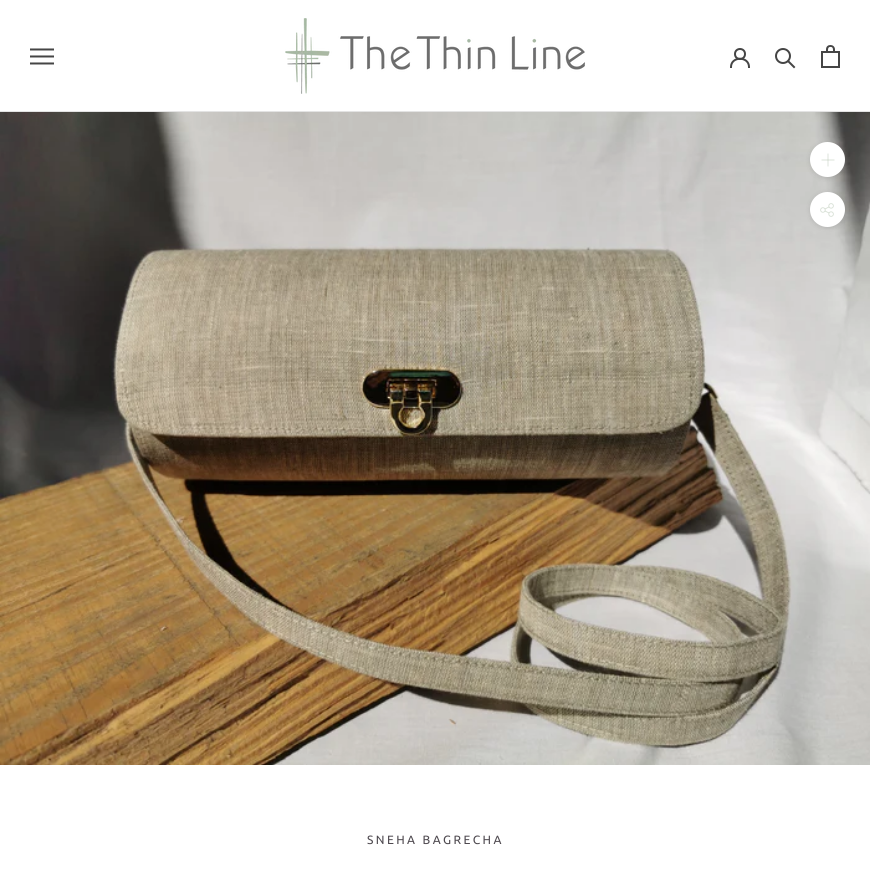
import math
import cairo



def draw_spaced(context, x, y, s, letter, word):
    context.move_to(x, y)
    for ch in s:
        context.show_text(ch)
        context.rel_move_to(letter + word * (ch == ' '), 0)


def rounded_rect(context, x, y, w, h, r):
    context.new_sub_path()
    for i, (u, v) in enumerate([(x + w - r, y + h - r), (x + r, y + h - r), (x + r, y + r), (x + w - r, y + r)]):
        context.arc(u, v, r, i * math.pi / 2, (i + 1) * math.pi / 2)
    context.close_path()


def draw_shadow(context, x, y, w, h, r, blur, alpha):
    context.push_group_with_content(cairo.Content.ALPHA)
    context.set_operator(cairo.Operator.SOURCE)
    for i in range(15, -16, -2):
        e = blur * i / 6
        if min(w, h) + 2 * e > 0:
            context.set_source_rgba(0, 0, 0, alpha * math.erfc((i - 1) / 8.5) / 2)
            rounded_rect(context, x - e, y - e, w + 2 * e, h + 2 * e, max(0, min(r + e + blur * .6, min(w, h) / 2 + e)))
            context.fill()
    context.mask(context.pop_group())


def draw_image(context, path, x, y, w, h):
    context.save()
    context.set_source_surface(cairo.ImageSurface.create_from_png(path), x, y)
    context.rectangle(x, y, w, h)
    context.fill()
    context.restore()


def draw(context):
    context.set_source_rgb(1, 1, 1)
    context.paint()
    context.set_source_rgb(227 / 255, 227 / 255, 227 / 255)
    context.rectangle(0, 111, 870, 1)
    context.fill()
    draw_image(context, "images/1.png", 30, 48, 24, 17)
    draw_image(context, "images/2.png", 285, 18, 300, 76)
    context.new_path()
    context.move_to(731, 67)
    context.curve_to(731, 56, 749, 56, 749, 67)
    context.set_source_rgb(69 / 255, 69 / 255, 69 / 255)
    context.set_line_cap(cairo.LineCap.SQUARE)
    context.stroke()
    context.arc(740, 54, 5, 0, 2 * math.pi)
    context.set_line_cap(cairo.LineCap.BUTT)
    context.stroke()
    context.new_path()
    context.move_to(794, 67)
    context.line_to(788.5, 61.5)
    context.set_line_cap(cairo.LineCap.SQUARE)
    context.stroke()
    context.arc(783, 56, 7, 0, 2 * math.pi)
    context.set_line_cap(cairo.LineCap.BUTT)
    context.stroke()
    draw_image(context, "images/3.png", 821, 45, 19, 23)
    draw_image(context, "images/4.png", 0, 112, 870, 653)
    context.set_source_rgb(54 / 255, 54 / 255, 54 / 255)
    draw_shadow(context, 810, 143, 35, 35, 17.5, 2.5, 0.15)
    context.set_source_rgb(1, 1, 1)
    context.arc(827.5, 159.5, 17.5, 0, 2 * math.pi)
    context.fill()
    context.new_path()
    context.move_to(828, 154)
    context.line_to(828, 166)
    context.set_source_rgb(217 / 255, 225 / 255, 215 / 255)
    context.set_line_width(0.9)
    context.set_line_cap(cairo.LineCap.SQUARE)
    context.stroke()
    context.new_path()
    context.move_to(822, 160)
    context.line_to(834, 160)
    context.set_source_rgba(178 / 255, 194 / 255, 174 / 255, 0.5)
    context.stroke()
    context.set_source_rgb(54 / 255, 54 / 255, 54 / 255)
    draw_shadow(context, 810, 193, 35, 35, 17.5, 2.5, 0.15)
    context.set_source_rgb(1, 1, 1)
    context.arc(827.5, 209.5, 17.5, 0, 2 * math.pi)
    context.fill()
    draw_image(context, "images/5.png", 820, 203, 14, 14)
    context.select_font_face("Ubuntu")
    context.set_font_size(12)
    context.set_source_rgb(78 / 255, 73 / 255, 79 / 255)
    draw_spaced(context, 367, 844, "SNEHA BAGRECHA", 2.4, 0)


surface = cairo.ImageSurface(cairo.Format.RGB24, 870, 872)
context = cairo.Context(surface)
options = cairo.FontOptions()
options.set_hint_metrics(cairo.HintMetrics.OFF)
options.set_hint_style(cairo.HintStyle.NONE)
context.set_font_options(options)
context.set_miter_limit(4)
draw(context)
surface.write_to_png("out.png")
